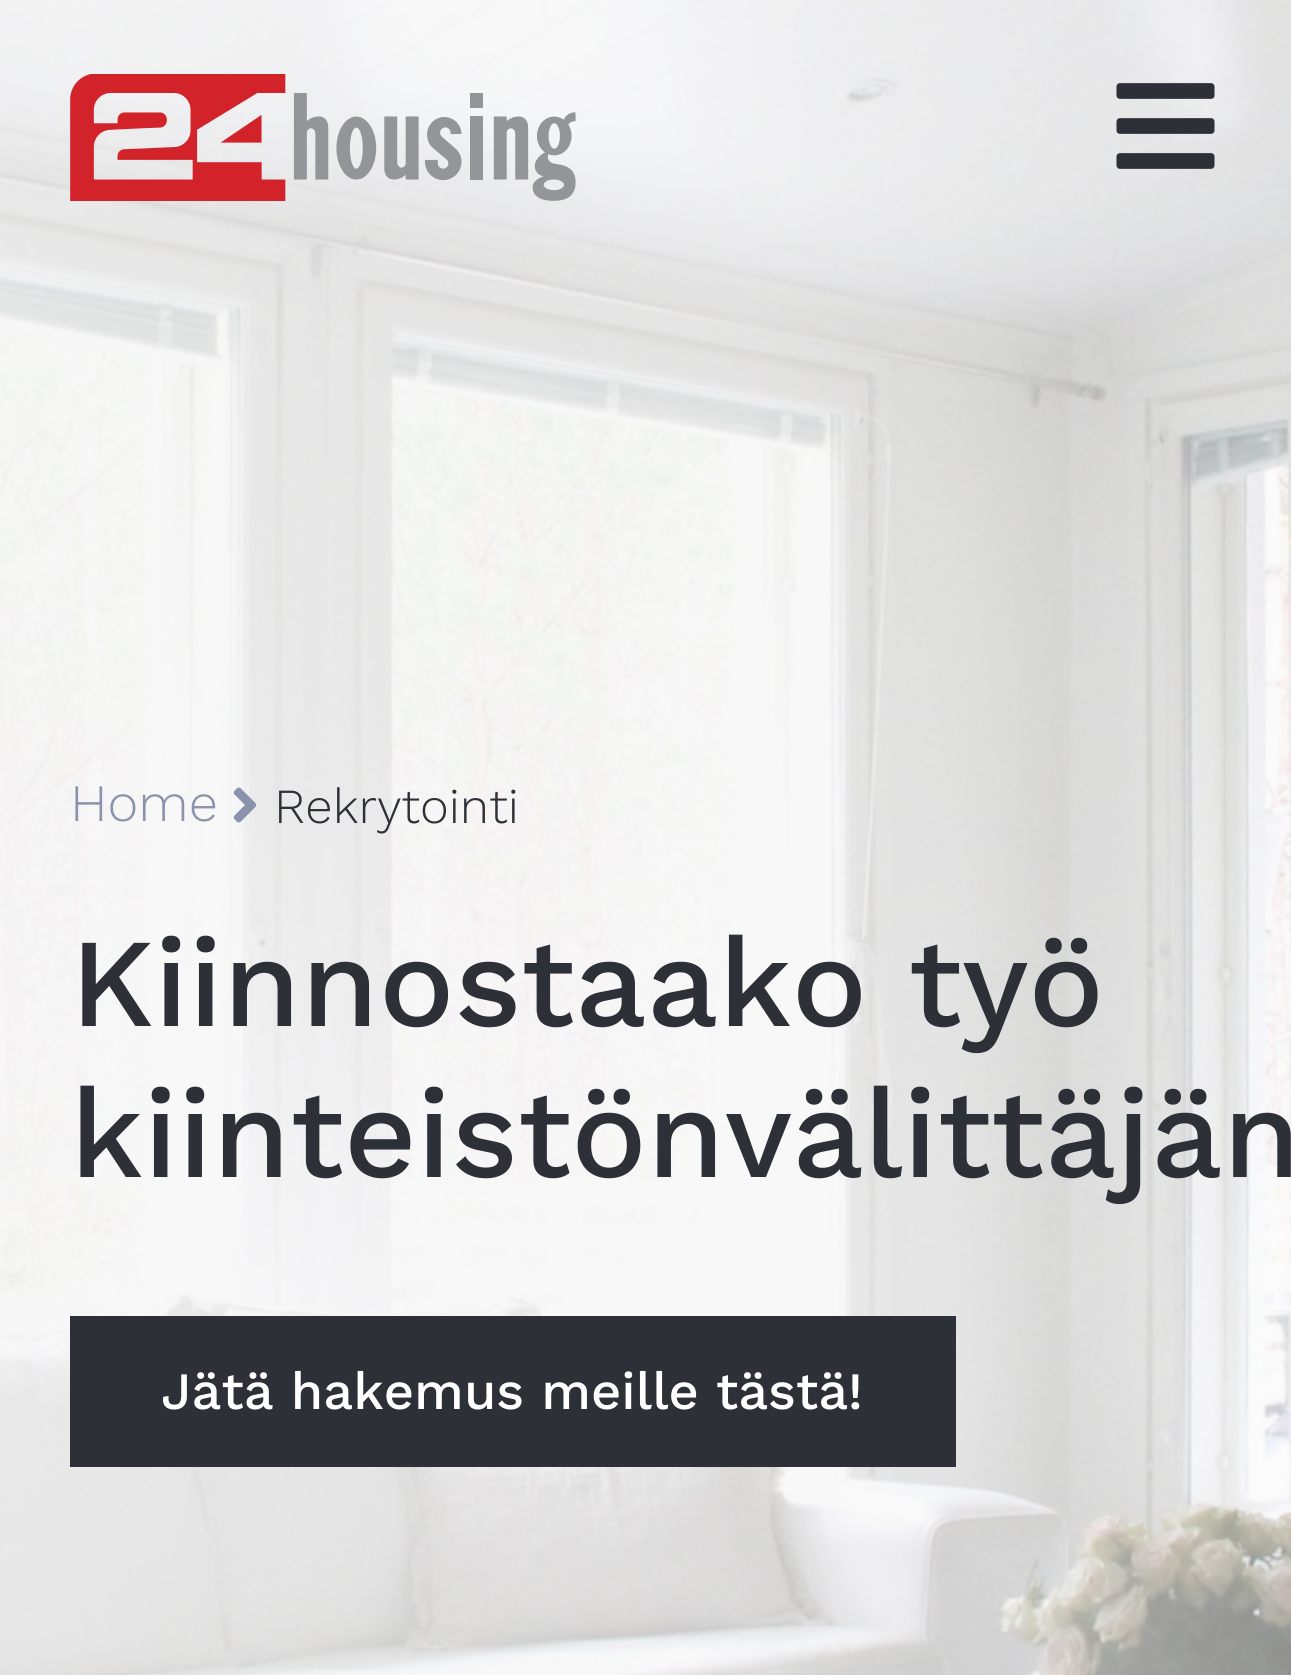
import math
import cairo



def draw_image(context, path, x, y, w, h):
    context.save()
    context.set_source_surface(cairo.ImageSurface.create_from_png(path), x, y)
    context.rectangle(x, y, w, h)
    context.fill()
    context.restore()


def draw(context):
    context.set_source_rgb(1, 1, 1)
    context.paint()
    draw_image(context, "images/3.png", 0, 0, 1291, 1675)
    draw_image(context, "images/1.png", 70, 74, 506, 127)
    draw_image(context, "images/2.png", 1116, 83, 99, 86)
    draw_image(context, "images/4.png", 233, 787, 24, 36)
    context.set_source_rgb(46 / 255, 48 / 255, 56 / 255)
    context.rectangle(70, 1316, 886, 151)
    context.fill()
    context.select_font_face("Work Sans Light")
    context.set_font_size(52.5)
    context.set_source_rgb(139 / 255, 146 / 255, 171 / 255)
    context.move_to(70, 821)
    context.show_text("Home")
    context.set_font_size(49)
    context.set_source_rgb(46 / 255, 48 / 255, 56 / 255)
    context.move_to(274, 823)
    context.show_text("Rekrytointi")
    context.select_font_face("Work Sans Medium")
    context.set_font_size(126)
    context.move_to(70, 1026)
    context.show_text("Kiinnostaako työ")
    context.move_to(70, 1177)
    context.show_text("kiinteistönvälittäjän")
    context.set_font_size(52.5)
    context.set_source_rgb(1, 1, 1)
    context.move_to(161, 1409)
    context.show_text("Jätä hakemus meille tästä!")


surface = cairo.ImageSurface(cairo.Format.RGB24, 1291, 1675)
context = cairo.Context(surface)
options = cairo.FontOptions()
options.set_hint_metrics(cairo.HintMetrics.OFF)
options.set_hint_style(cairo.HintStyle.NONE)
context.set_font_options(options)
context.set_miter_limit(4)
draw(context)
surface.write_to_png("out.png")
